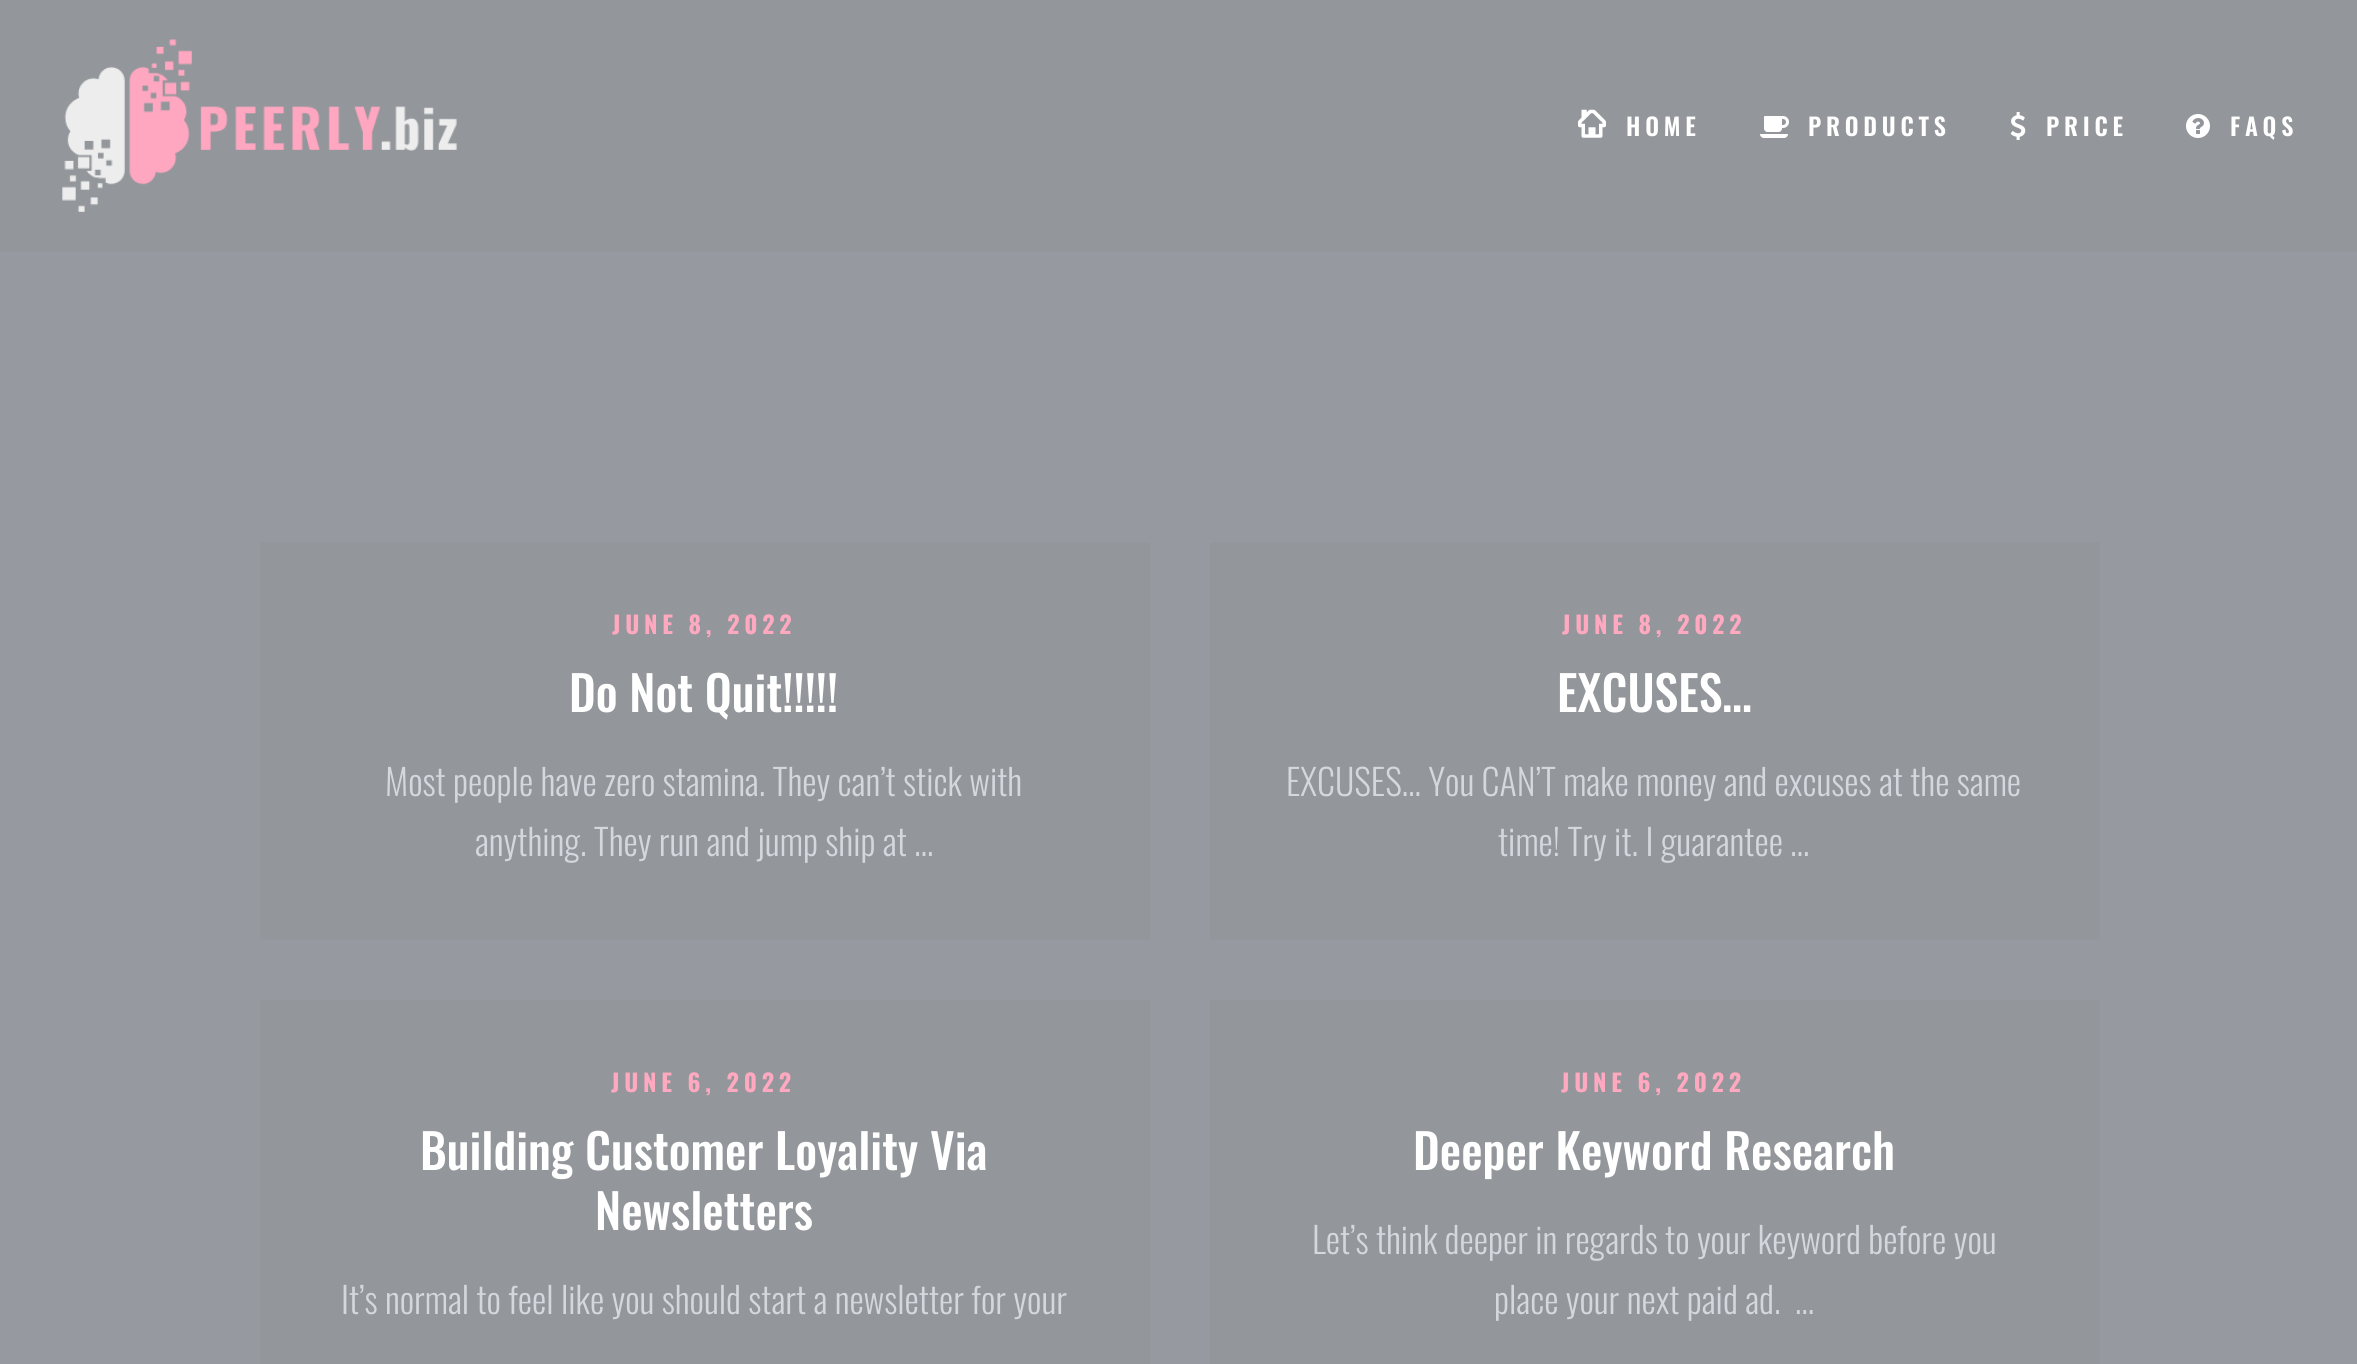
import math
import cairo



def draw_spaced(context, x, y, s, letter, word):
    context.move_to(x, y)
    for ch in s:
        context.show_text(ch)
        context.rel_move_to(letter + word * (ch == ' '), 0)


def draw_image(context, path, x, y, w, h):
    context.save()
    context.set_source_surface(cairo.ImageSurface.create_from_png(path), x, y)
    context.rectangle(x, y, w, h)
    context.fill()
    context.restore()


def draw(context):
    context.set_source_rgb(150 / 255, 153 / 255, 159 / 255)
    context.paint()
    context.set_source_rgb(147 / 255, 150 / 255, 154 / 255)
    context.rectangle(0, 0, 2357, 252)
    context.fill()
    draw_image(context, "images/1.png", 62, 39, 395, 173)
    draw_image(context, "images/2.png", 1578, 109, 28, 29)
    draw_image(context, "images/3.png", 1760, 116, 29, 22)
    draw_image(context, "images/4.png", 2010, 112, 16, 28)
    draw_image(context, "images/5.png", 2186, 114, 24, 24)
    context.rectangle(260, 542, 890, 398)
    context.fill()
    context.rectangle(1210, 542, 890, 398)
    context.fill()
    context.rectangle(260, 1000, 890, 364)
    context.fill()
    context.rectangle(1210, 1000, 890, 364)
    context.fill()
    context.select_font_face("Oswald SemiBold")
    context.set_font_size(24)
    context.set_source_rgb(1, 1, 1)
    draw_spaced(context, 1626, 136, "HOME", 4.75, 0)
    draw_spaced(context, 1808, 136, "PRODUCTS", 4.75, 0)
    draw_spaced(context, 2046, 136, "PRICE", 4.75, 0)
    draw_spaced(context, 2230, 136, "FAQS", 4.75, 0)
    context.select_font_face("Oswald", cairo.FontSlant.NORMAL, cairo.FontWeight.BOLD)
    context.set_source_rgb(1, 169 / 255, 193 / 255)
    draw_spaced(context, 612, 634, "JUNE 8, 2022", 4.75, 0)
    context.select_font_face("Oswald Medium")
    context.set_font_size(48)
    context.set_source_rgb(1, 1, 1)
    context.move_to(569, 712)
    context.show_text("Do Not Quit!!!!!")
    context.select_font_face("Oswald Light")
    context.set_font_size(36)
    context.set_source_rgb(212 / 255, 215 / 255, 222 / 255)
    context.move_to(385, 796)
    context.show_text("Most people have zero stamina. They can’t stick with")
    context.move_to(475, 856)
    context.show_text("anything. They run and jump ship at …")
    context.select_font_face("Oswald", cairo.FontSlant.NORMAL, cairo.FontWeight.BOLD)
    context.set_font_size(24)
    context.set_source_rgb(1, 169 / 255, 193 / 255)
    draw_spaced(context, 1562, 634, "JUNE 8, 2022", 4.75, 0)
    context.select_font_face("Oswald Medium")
    context.set_font_size(48)
    context.set_source_rgb(1, 1, 1)
    context.move_to(1557, 712)
    context.show_text("EXCUSES…")
    context.select_font_face("Oswald Light")
    context.set_font_size(36)
    context.set_source_rgb(212 / 255, 215 / 255, 222 / 255)
    context.move_to(1286, 796)
    context.show_text("EXCUSES… You CAN’T make money and excuses at the same")
    context.move_to(1498, 856)
    context.show_text("time! Try it. I guarantee …")
    context.select_font_face("Oswald", cairo.FontSlant.NORMAL, cairo.FontWeight.BOLD)
    context.set_font_size(24)
    context.set_source_rgb(1, 169 / 255, 193 / 255)
    draw_spaced(context, 611, 1092, "JUNE 6, 2022", 4.75, 0)
    context.select_font_face("Oswald Medium")
    context.set_font_size(48)
    context.set_source_rgb(1, 1, 1)
    context.move_to(420, 1170)
    context.show_text("Building Customer Loyality Via")
    context.move_to(595, 1230)
    context.show_text("Newsletters")
    context.select_font_face("Oswald Light")
    context.set_font_size(36)
    context.set_source_rgb(212 / 255, 215 / 255, 222 / 255)
    context.move_to(341, 1314)
    context.show_text("It’s normal to feel like you should start a newsletter for your")
    context.select_font_face("Oswald", cairo.FontSlant.NORMAL, cairo.FontWeight.BOLD)
    context.set_font_size(24)
    context.set_source_rgb(1, 169 / 255, 193 / 255)
    draw_spaced(context, 1561, 1092, "JUNE 6, 2022", 4.75, 0)
    context.select_font_face("Oswald Medium")
    context.set_font_size(48)
    context.set_source_rgb(1, 1, 1)
    context.move_to(1413, 1170)
    context.show_text("Deeper Keyword Research")
    context.select_font_face("Oswald Light")
    context.set_font_size(36)
    context.set_source_rgb(212 / 255, 215 / 255, 222 / 255)
    context.move_to(1312, 1254)
    context.show_text("Let’s think deeper in regards to your keyword before you")
    context.move_to(1494, 1314)
    context.show_text("place your next paid ad.  …")


surface = cairo.ImageSurface(cairo.Format.RGB24, 2357, 1364)
context = cairo.Context(surface)
options = cairo.FontOptions()
options.set_hint_metrics(cairo.HintMetrics.OFF)
options.set_hint_style(cairo.HintStyle.NONE)
context.set_font_options(options)
context.set_miter_limit(4)
draw(context)
surface.write_to_png("out.png")
